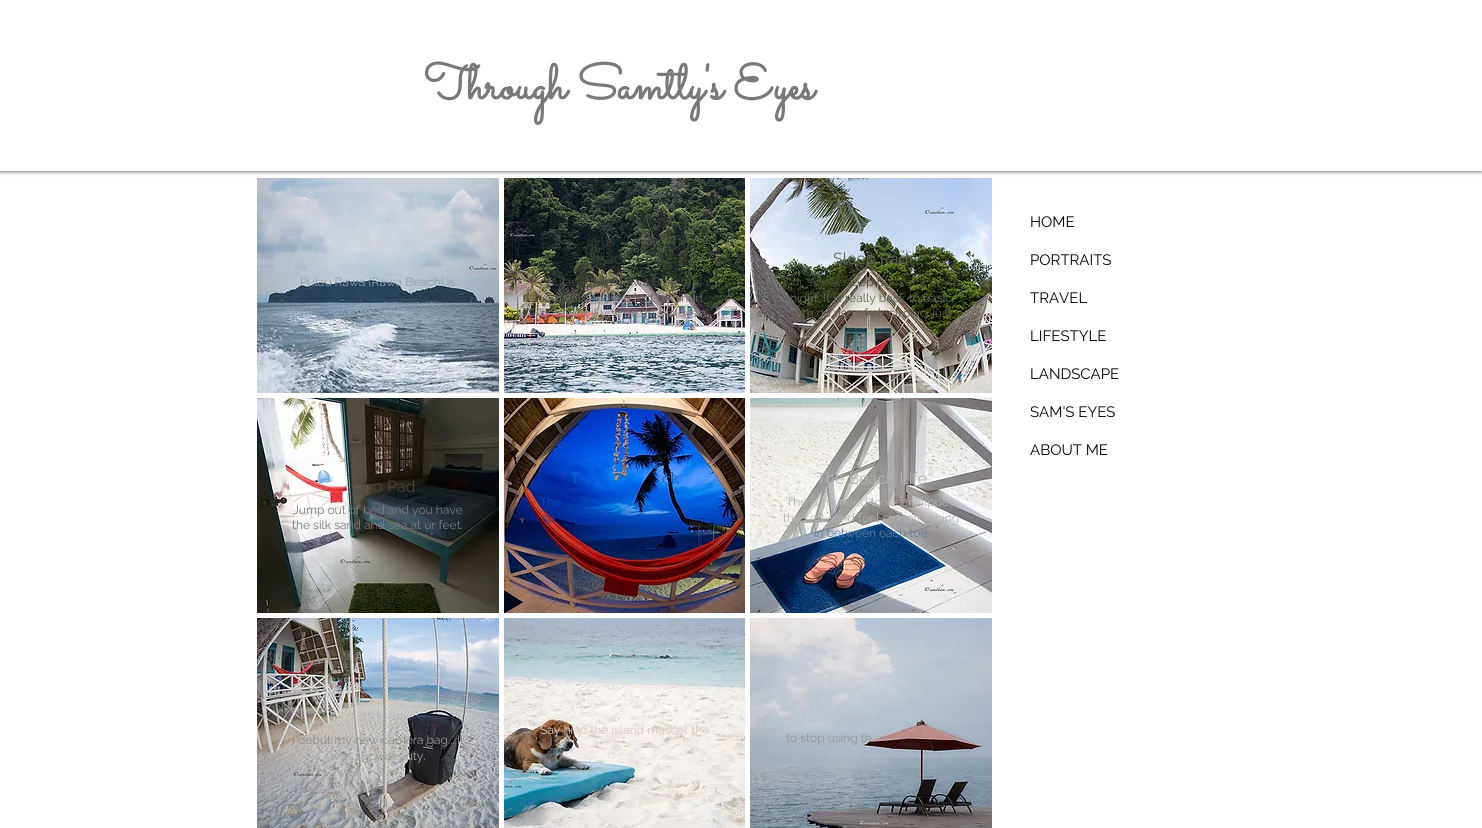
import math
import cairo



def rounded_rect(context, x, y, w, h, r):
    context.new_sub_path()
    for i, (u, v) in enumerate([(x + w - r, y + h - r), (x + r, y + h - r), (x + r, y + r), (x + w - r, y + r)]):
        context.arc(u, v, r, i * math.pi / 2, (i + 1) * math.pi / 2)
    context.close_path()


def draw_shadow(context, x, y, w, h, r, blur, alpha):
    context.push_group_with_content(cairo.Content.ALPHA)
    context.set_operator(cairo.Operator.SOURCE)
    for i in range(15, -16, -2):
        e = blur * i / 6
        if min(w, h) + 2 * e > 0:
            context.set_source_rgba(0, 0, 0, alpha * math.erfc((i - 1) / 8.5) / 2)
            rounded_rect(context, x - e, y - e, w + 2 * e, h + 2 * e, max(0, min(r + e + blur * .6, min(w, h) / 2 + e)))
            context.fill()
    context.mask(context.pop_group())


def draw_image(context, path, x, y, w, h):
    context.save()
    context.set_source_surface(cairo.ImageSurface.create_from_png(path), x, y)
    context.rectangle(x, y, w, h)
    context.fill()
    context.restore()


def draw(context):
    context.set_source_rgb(1, 1, 1)
    context.paint()
    draw_image(context, "images/1.png", 257, 178, 242, 215)
    draw_image(context, "images/2.png", 504, 178, 241, 215)
    draw_image(context, "images/3.png", 750, 178, 242, 215)
    context.set_source_rgb(0, 0, 0)
    draw_shadow(context, 0, 0, 1482, 171, 0, 2.5, 0.7)
    context.set_source_rgb(1, 1, 1)
    context.rectangle(0, 0, 1482, 171)
    context.fill()
    draw_image(context, "images/4.png", 257, 398, 242, 215)
    draw_image(context, "images/5.png", 504, 398, 241, 215)
    draw_image(context, "images/6.png", 750, 398, 242, 215)
    draw_image(context, "images/7.png", 504, 618, 241, 210)
    draw_image(context, "images/8.png", 257, 618, 242, 210)
    draw_image(context, "images/9.png", 750, 618, 242, 210)
    context.select_font_face("Sacramento", cairo.FontSlant.NORMAL, cairo.FontWeight.BOLD)
    context.set_font_size(49)
    context.set_source_rgb(121 / 255, 121 / 255, 121 / 255)
    context.move_to(424, 99)
    context.show_text("Through Samtly's Eyes")
    context.select_font_face("Raleway")
    context.set_font_size(12)
    context.set_source_rgb(140 / 255, 158 / 255, 173 / 255)
    context.move_to(300, 286)
    context.show_text("Pulau Rawa (Rawa Beach) is")
    context.set_font_size(16)
    context.set_source_rgb(53 / 255, 64 / 255, 52 / 255)
    context.move_to(585, 264)
    context.show_text("Beach Life")
    context.set_font_size(12)
    context.set_source_rgb(74 / 255, 79 / 255, 64 / 255)
    context.move_to(547, 286)
    context.show_text("Pulau Rawa (Rawa Beach) is")
    context.set_source_rgb(104 / 255, 102 / 255, 100 / 255)
    context.move_to(545, 302)
    context.show_text("small island perfect for short")
    context.set_source_rgb(147 / 255, 129 / 255, 128 / 255)
    context.move_to(540, 317)
    context.show_text("getaway if you are in Malaysia")
    context.set_font_size(16)
    context.set_source_rgb(94 / 255, 105 / 255, 87 / 255)
    context.move_to(833, 264)
    context.show_text("Sleep Pad")
    context.set_font_size(12)
    context.set_source_rgb(70 / 255, 75 / 255, 48 / 255)
    context.move_to(783, 286)
    context.show_text("Our sweet sleep pad for 3 day 2")
    context.set_source_rgb(94 / 255, 105 / 255, 87 / 255)
    context.move_to(790, 302)
    context.show_text("night. It is really back to basic")
    context.set_source_rgb(96 / 255, 90 / 255, 76 / 255)
    context.move_to(790, 317)
    context.show_text("with no use of electronic, just")
    context.set_font_size(16)
    context.set_source_rgb(74 / 255, 67 / 255, 61 / 255)
    context.move_to(373, 492)
    context.show_text("p Pad")
    context.set_font_size(12)
    context.set_source_rgb(116 / 255, 123 / 255, 127 / 255)
    context.move_to(293, 514)
    context.show_text("Jump out of bed and you have")
    context.move_to(292, 529)
    context.show_text("the silk sand and sea at ur feet.")
    context.set_font_size(16)
    context.set_source_rgb(20 / 255, 100 / 255, 205 / 255)
    context.move_to(570, 484)
    context.show_text("T")
    context.move_to(662, 484)
    context.show_text("ck")
    context.set_font_size(12)
    context.set_source_rgb(4 / 255, 76 / 255, 189 / 255)
    context.move_to(540, 506)
    context.show_text("The")
    context.move_to(633, 506)
    context.show_text("a")
    context.set_source_rgb(19 / 255, 61 / 255, 160 / 255)
    context.move_to(542, 522)
    context.show_text("sp")
    context.set_font_size(16)
    context.set_source_rgb(181 / 255, 179 / 255, 178 / 255)
    context.move_to(816, 484)
    context.show_text("The Beach Life")
    context.set_font_size(12)
    context.move_to(786, 506)
    context.show_text("The is no need to wear slipper,")
    context.move_to(783, 522)
    context.show_text("the soft sand feel smooth going")
    context.set_source_rgb(100 / 255, 128 / 255, 159 / 255)
    context.move_to(814, 537)
    context.show_text("in between each toe")
    context.set_source_rgb(213 / 255, 202 / 255, 195 / 255)
    context.move_to(540, 734)
    context.show_text("Say hi to the island mascot the")
    context.set_source_rgb(145 / 255, 143 / 255, 142 / 255)
    context.move_to(292, 744)
    context.show_text("I debut my new camera bag....It")
    context.set_source_rgb(163 / 255, 163 / 255, 162 / 255)
    context.move_to(330, 760)
    context.show_text("was such beauty.")
    context.set_source_rgb(156 / 255, 145 / 255, 151 / 255)
    context.move_to(786, 742)
    context.show_text("to stop using th")
    context.set_font_size(15)
    context.set_source_rgb(5 / 255, 5 / 255, 5 / 255)
    context.move_to(1030, 227)
    context.show_text("HOME")
    context.move_to(1030, 265)
    context.show_text("PORTRAITS")
    context.move_to(1030, 303)
    context.show_text("TRAVEL")
    context.move_to(1030, 341)
    context.show_text("LIFESTYLE")
    context.move_to(1030, 379)
    context.show_text("LANDSCAPE")
    context.move_to(1030, 417)
    context.show_text("SAM'S EYES")
    context.move_to(1030, 455)
    context.show_text("ABOUT ME")


surface = cairo.ImageSurface(cairo.Format.RGB24, 1482, 828)
context = cairo.Context(surface)
options = cairo.FontOptions()
options.set_hint_metrics(cairo.HintMetrics.OFF)
options.set_hint_style(cairo.HintStyle.NONE)
context.set_font_options(options)
context.set_miter_limit(4)
draw(context)
surface.write_to_png("out.png")
